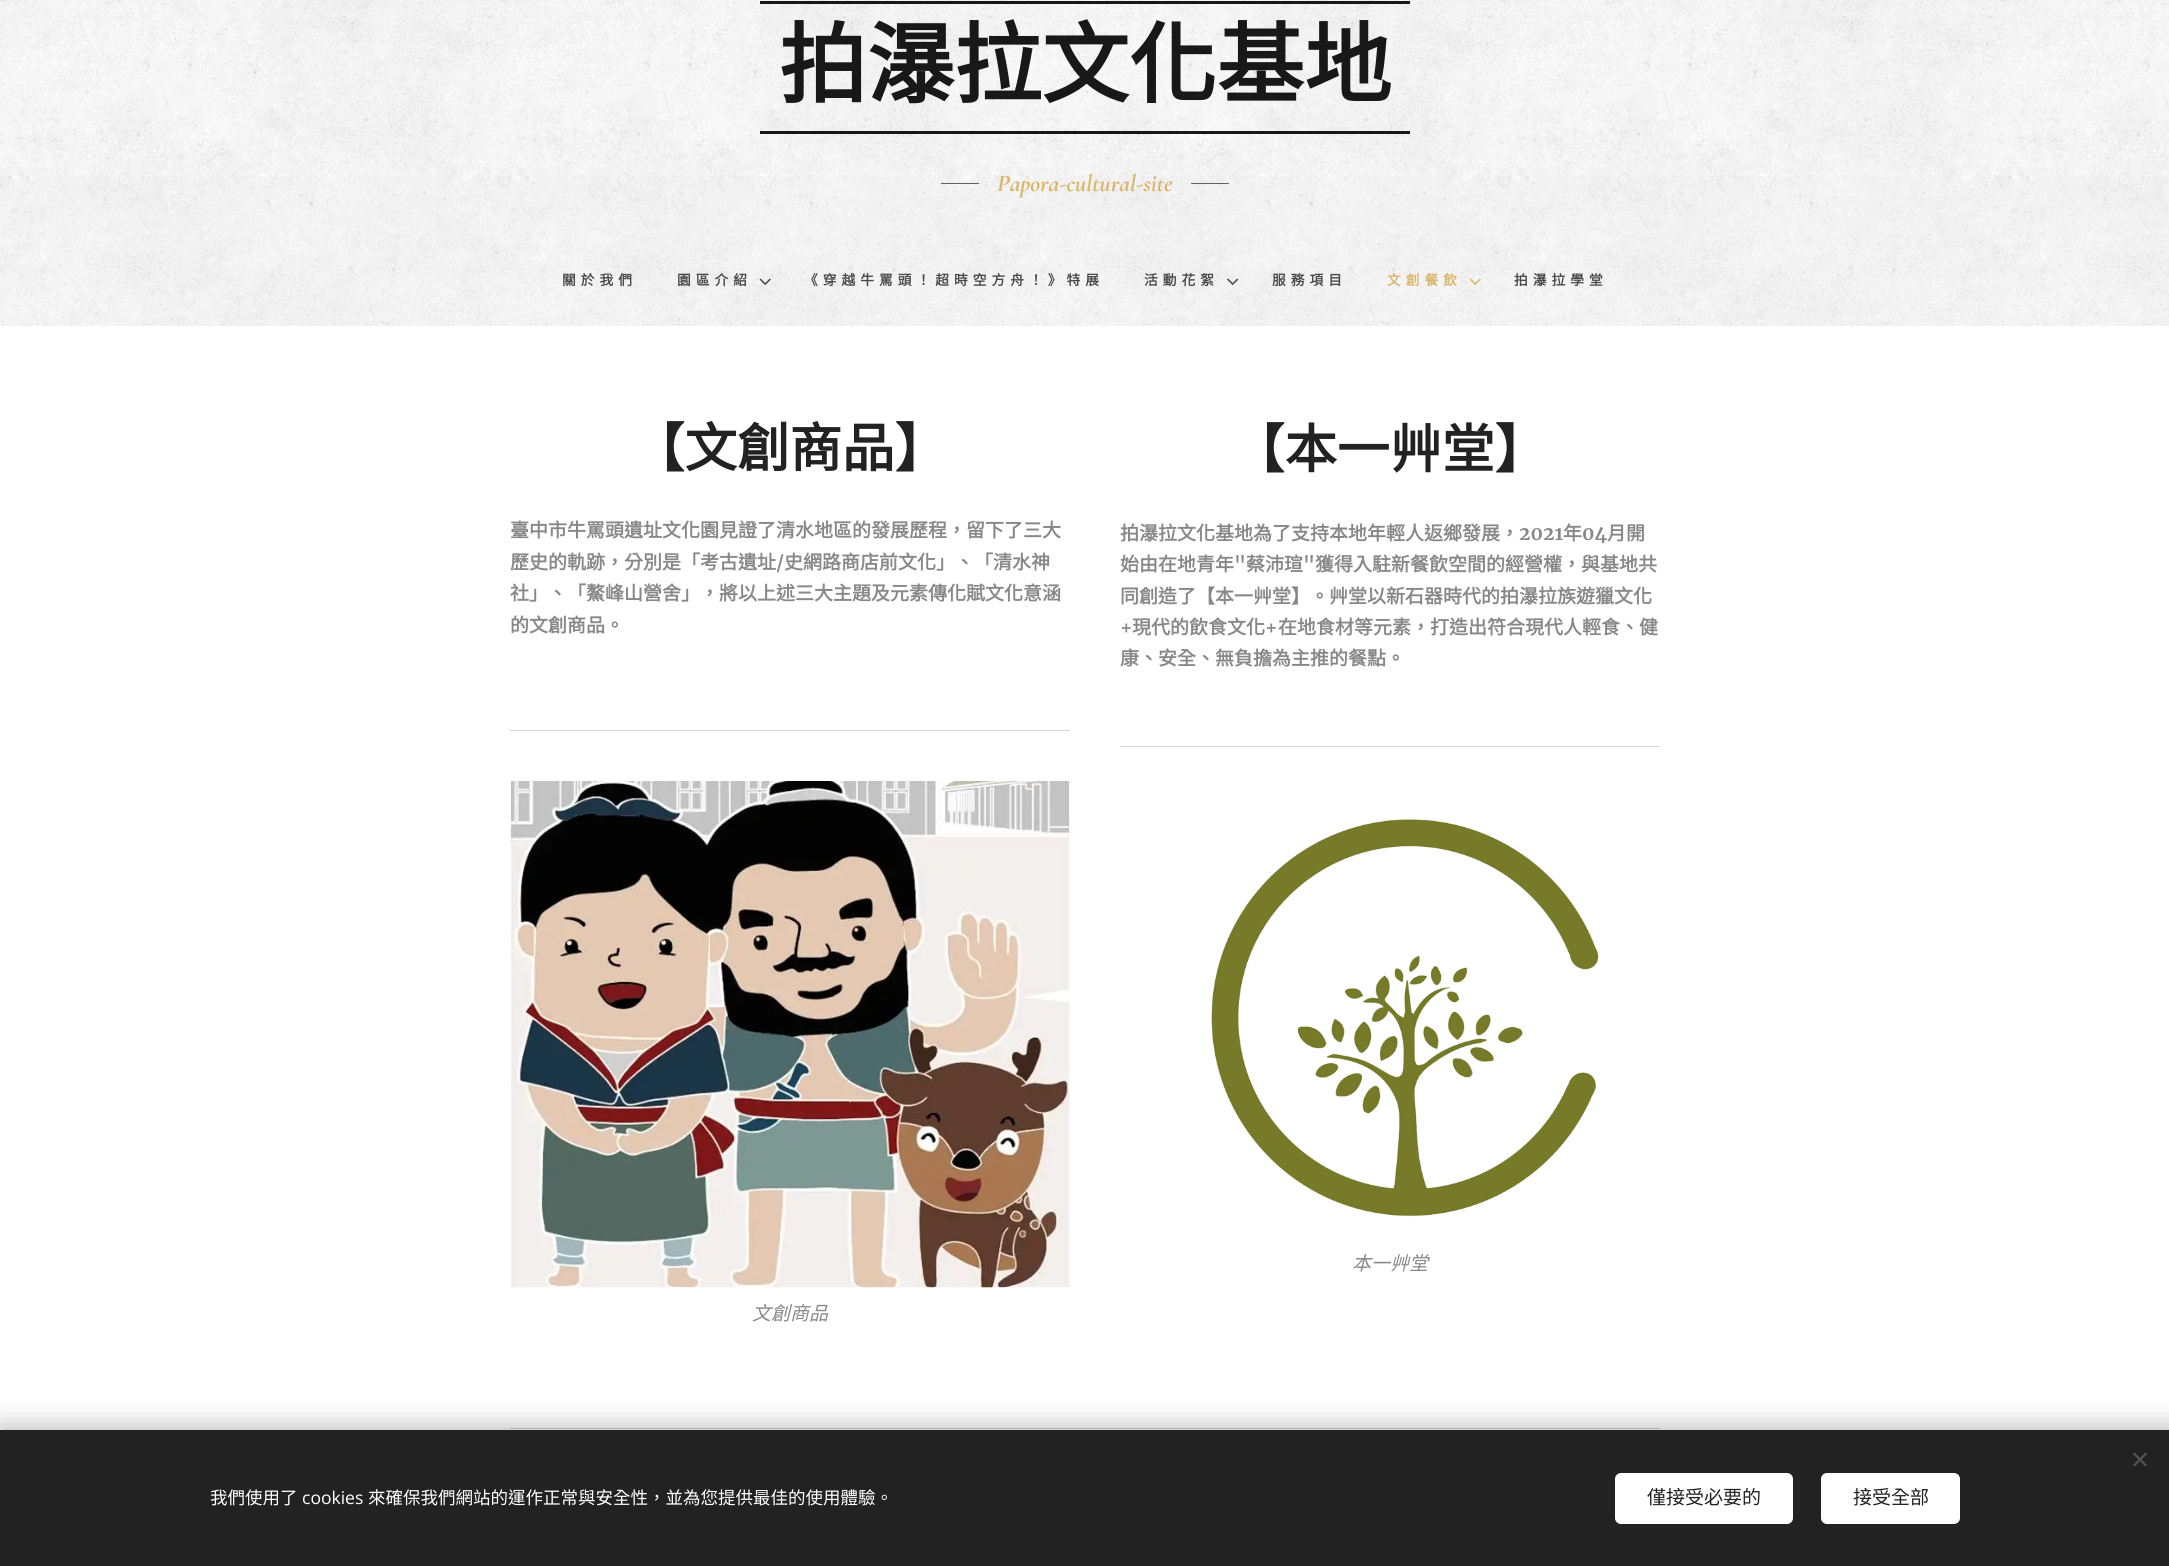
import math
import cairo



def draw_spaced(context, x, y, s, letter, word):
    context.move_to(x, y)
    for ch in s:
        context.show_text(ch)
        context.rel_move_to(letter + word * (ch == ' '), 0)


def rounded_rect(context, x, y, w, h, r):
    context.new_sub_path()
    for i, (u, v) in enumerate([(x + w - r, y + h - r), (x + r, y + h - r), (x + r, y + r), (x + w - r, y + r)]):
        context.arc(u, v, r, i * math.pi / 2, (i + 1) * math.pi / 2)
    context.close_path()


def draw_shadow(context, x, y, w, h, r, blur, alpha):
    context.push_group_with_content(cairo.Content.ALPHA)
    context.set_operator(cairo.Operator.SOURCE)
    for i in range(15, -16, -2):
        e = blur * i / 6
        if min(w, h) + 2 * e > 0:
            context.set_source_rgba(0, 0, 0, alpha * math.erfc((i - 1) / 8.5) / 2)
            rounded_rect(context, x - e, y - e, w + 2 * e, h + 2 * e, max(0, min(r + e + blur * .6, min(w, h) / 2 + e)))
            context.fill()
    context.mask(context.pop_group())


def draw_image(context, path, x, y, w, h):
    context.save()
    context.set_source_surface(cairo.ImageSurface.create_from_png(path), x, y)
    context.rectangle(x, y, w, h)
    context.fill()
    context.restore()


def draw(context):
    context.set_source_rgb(1, 1, 1)
    context.paint()
    draw_image(context, "images/1.png", 0, 0, 2169, 326)
    context.set_source_rgba(0, 0, 0, 0.9)
    context.rectangle(760, 1, 650, 3)
    context.fill()
    context.rectangle(760, 131, 650, 3)
    context.fill()
    context.set_source_rgba(0, 0, 0, 0.6)
    context.rectangle(941, 183, 38, 1)
    context.fill()
    context.rectangle(1191, 183, 38, 1)
    context.fill()
    draw_image(context, "images/2.png", 759, 278, 12, 7)
    draw_image(context, "images/3.png", 1227, 278, 12, 7)
    draw_image(context, "images/4.png", 1469, 278, 12, 7)
    context.set_source_rgb(212 / 255, 212 / 255, 212 / 255)
    context.rectangle(510, 730, 560, 1)
    context.fill()
    draw_image(context, "images/5.png", 510, 781, 560, 507)
    context.rectangle(1120, 746, 540, 1)
    context.fill()
    draw_image(context, "images/6.png", 1211, 819, 388, 398)
    context.rectangle(510, 1428, 1150, 1)
    context.fill()
    context.set_source_rgb(0, 0, 0)
    draw_shadow(context, 0, 1430, 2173, 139, 0, 15.5, 0.33)
    context.set_source_rgb(34 / 255, 34 / 255, 34 / 255)
    context.rectangle(0, 1430, 2169, 136)
    context.fill()
    context.set_source_rgb(85 / 255, 85 / 255, 85 / 255)
    context.new_path()
    context.move_to(2133, 1465)
    context.line_to(2145.5, 1452.5)
    context.line_to(2147, 1454)
    context.line_to(2134.5, 1466.5)
    context.close_path()
    context.fill()
    context.new_path()
    context.move_to(2134.5, 1452.5)
    context.line_to(2147, 1465)
    context.line_to(2145.5, 1466.5)
    context.line_to(2133, 1454)
    context.close_path()
    context.fill()
    context.set_source_rgb(1, 1, 1)
    rounded_rect(context, 1615, 1473, 178, 51, 6)
    context.fill()
    rounded_rect(context, 1821, 1473, 139, 51, 6)
    context.fill()
    context.select_font_face("Noto Sans CJK TC", cairo.FontSlant.NORMAL, cairo.FontWeight.BOLD)
    context.set_font_size(87.5)
    context.set_source_rgb(24 / 255, 24 / 255, 24 / 255)
    context.move_to(779, 96)
    context.show_text("拍瀑拉文化基地")
    context.select_font_face("Cormorant", cairo.FontSlant.ITALIC, cairo.FontWeight.BOLD)
    context.set_font_size(24)
    context.set_source_rgb(217 / 255, 181 / 255, 105 / 255)
    context.move_to(997, 191)
    context.show_text("Papora-cultural-site")
    context.select_font_face("Noto Sans CJK TC", cairo.FontSlant.NORMAL, cairo.FontWeight.BOLD)
    context.set_font_size(13.75)
    context.set_source_rgb(73 / 255, 73 / 255, 73 / 255)
    draw_spaced(context, 562, 285, "關於我們", 5, 0)
    draw_spaced(context, 677, 285, "園區介紹", 5, 0)
    draw_spaced(context, 804, 285, "《穿越牛罵頭！超時空方舟！》特展", 5, 0)
    draw_spaced(context, 1144, 285, "活動花絮", 5, 0)
    draw_spaced(context, 1272, 285, "服務項目", 5, 0)
    context.set_source_rgb(217 / 255, 181 / 255, 105 / 255)
    draw_spaced(context, 1387, 285, "文創餐飲", 5, 0)
    context.set_source_rgb(73 / 255, 73 / 255, 73 / 255)
    draw_spaced(context, 1514, 285, "拍瀑拉學堂", 5, 0)
    context.set_font_size(52.5)
    context.set_source_rgb(34 / 255, 34 / 255, 34 / 255)
    context.move_to(632, 467)
    context.show_text("【文創商品】")
    context.set_font_size(19)
    context.set_source_rgb(136 / 255, 136 / 255, 136 / 255)
    context.move_to(510, 537)
    context.show_text("臺中市牛罵頭遺址文化園見證了清水地區的發展歷程，留下了三大")
    context.move_to(510, 569)
    context.show_text("歷史的軌跡，分別是「考古遺址")
    context.select_font_face("Merriweather", cairo.FontSlant.NORMAL, cairo.FontWeight.BOLD)
    context.move_to(776, 569)
    context.show_text("/")
    context.select_font_face("Noto Sans CJK TC", cairo.FontSlant.NORMAL, cairo.FontWeight.BOLD)
    context.move_to(784, 569)
    context.show_text("史網路商店前文化」、「清水神")
    context.move_to(510, 600)
    context.show_text("社」、「鰲峰山營舍」，將以上述三大主題及元素傳化賦文化意涵")
    context.move_to(510, 632)
    context.show_text("的文創商品。")
    context.select_font_face("Noto Sans CJK TC", cairo.FontSlant.ITALIC)
    context.move_to(752, 1320)
    context.show_text("文創商品")
    context.select_font_face("Noto Sans CJK TC", cairo.FontSlant.NORMAL, cairo.FontWeight.BOLD)
    context.set_font_size(52.5)
    context.set_source_rgb(34 / 255, 34 / 255, 34 / 255)
    context.move_to(1232, 468)
    context.show_text("【本一艸堂】")
    context.set_font_size(19)
    context.set_source_rgb(136 / 255, 136 / 255, 136 / 255)
    context.move_to(1120, 540)
    context.show_text("拍瀑拉文化基地為了支持本地年輕人返鄉發展，")
    context.select_font_face("Merriweather", cairo.FontSlant.NORMAL, cairo.FontWeight.BOLD)
    context.move_to(1519, 540)
    context.show_text("2021")
    context.select_font_face("Noto Sans CJK TC", cairo.FontSlant.NORMAL, cairo.FontWeight.BOLD)
    context.move_to(1563, 540)
    context.show_text("年")
    context.select_font_face("Merriweather", cairo.FontSlant.NORMAL, cairo.FontWeight.BOLD)
    context.move_to(1582, 540)
    context.show_text("04")
    context.select_font_face("Noto Sans CJK TC", cairo.FontSlant.NORMAL, cairo.FontWeight.BOLD)
    context.move_to(1607, 540)
    context.show_text("月開")
    context.move_to(1120, 571)
    context.show_text("始由在地青年")
    context.select_font_face("Merriweather", cairo.FontSlant.NORMAL, cairo.FontWeight.BOLD)
    context.move_to(1234, 571)
    context.show_text("\"")
    context.select_font_face("Noto Sans CJK TC", cairo.FontSlant.NORMAL, cairo.FontWeight.BOLD)
    context.move_to(1246, 571)
    context.show_text("蔡沛瑄")
    context.select_font_face("Merriweather", cairo.FontSlant.NORMAL, cairo.FontWeight.BOLD)
    context.move_to(1303, 571)
    context.show_text("\"")
    context.select_font_face("Noto Sans CJK TC", cairo.FontSlant.NORMAL, cairo.FontWeight.BOLD)
    context.move_to(1315, 571)
    context.show_text("獲得入駐新餐飲空間的經營權，與基地共")
    context.move_to(1120, 603)
    context.show_text("同創造了【本一艸堂】。艸堂以新石器時代的拍瀑拉族遊獵文化")
    context.select_font_face("Merriweather", cairo.FontSlant.NORMAL, cairo.FontWeight.BOLD)
    context.move_to(1120, 634)
    context.show_text("+")
    context.select_font_face("Noto Sans CJK TC", cairo.FontSlant.NORMAL, cairo.FontWeight.BOLD)
    context.move_to(1132, 634)
    context.show_text("現代的飲食文化")
    context.select_font_face("Merriweather", cairo.FontSlant.NORMAL, cairo.FontWeight.BOLD)
    context.move_to(1265, 634)
    context.show_text("+")
    context.select_font_face("Noto Sans CJK TC", cairo.FontSlant.NORMAL, cairo.FontWeight.BOLD)
    context.move_to(1278, 634)
    context.show_text("在地食材等元素，打造出符合現代人輕食、健")
    context.move_to(1120, 665)
    context.show_text("康、安全、無負擔為主推的餐點。")
    context.select_font_face("Noto Sans CJK TC", cairo.FontSlant.ITALIC)
    context.move_to(1352, 1270)
    context.show_text("本一艸堂")
    context.select_font_face("Noto Sans CJK TC")
    context.set_font_size(17.5)
    context.set_source_rgb(1, 1, 1)
    context.move_to(210, 1504)
    context.show_text("我們使用了")
    context.select_font_face("Open Sans")
    context.move_to(302, 1504)
    context.show_text("cookies")
    context.select_font_face("Noto Sans CJK TC")
    context.move_to(368, 1504)
    context.show_text("來確保我們網站的運作正常與安全性，並為您提供最佳的使用體驗。")
    context.set_font_size(19)
    context.set_source_rgb(34 / 255, 34 / 255, 34 / 255)
    context.move_to(1647, 1504)
    context.show_text("僅接受必要的")
    context.move_to(1853, 1504)
    context.show_text("接受全部")


surface = cairo.ImageSurface(cairo.Format.RGB24, 2169, 1566)
context = cairo.Context(surface)
options = cairo.FontOptions()
options.set_hint_metrics(cairo.HintMetrics.OFF)
options.set_hint_style(cairo.HintStyle.NONE)
context.set_font_options(options)
context.set_miter_limit(4)
draw(context)
surface.write_to_png("out.png")
